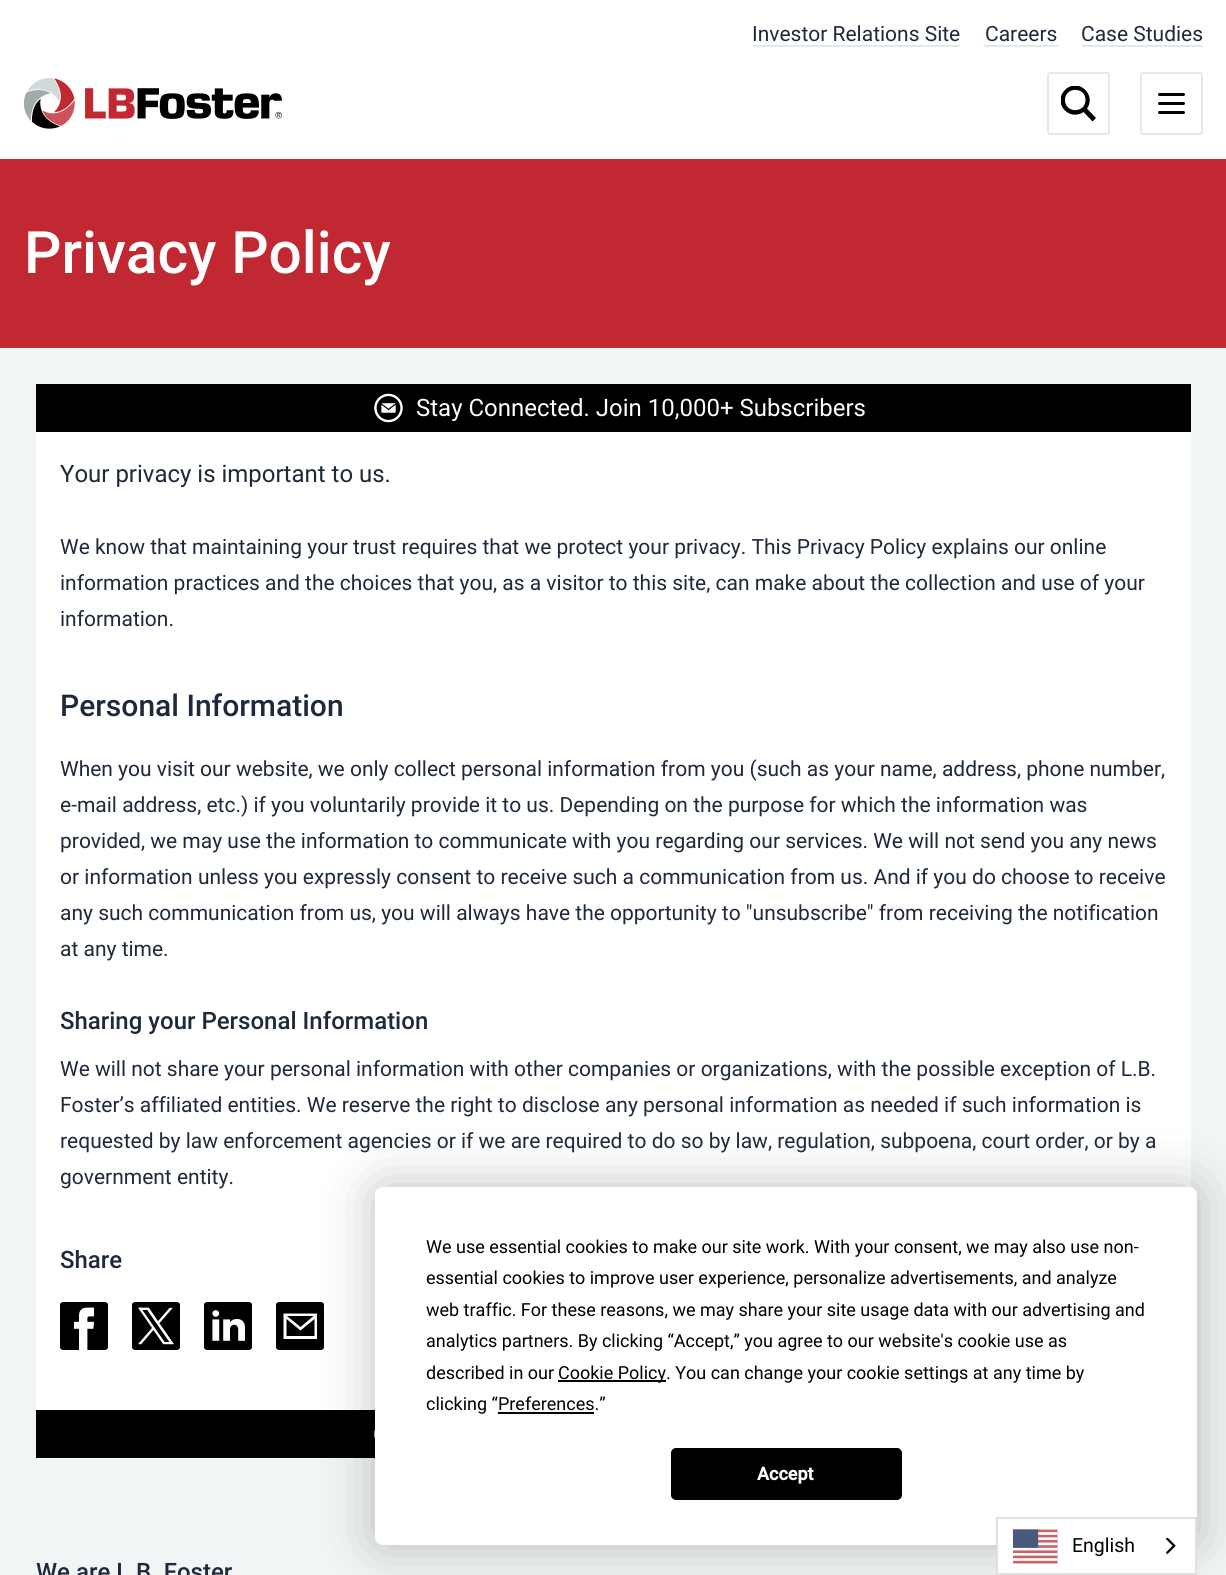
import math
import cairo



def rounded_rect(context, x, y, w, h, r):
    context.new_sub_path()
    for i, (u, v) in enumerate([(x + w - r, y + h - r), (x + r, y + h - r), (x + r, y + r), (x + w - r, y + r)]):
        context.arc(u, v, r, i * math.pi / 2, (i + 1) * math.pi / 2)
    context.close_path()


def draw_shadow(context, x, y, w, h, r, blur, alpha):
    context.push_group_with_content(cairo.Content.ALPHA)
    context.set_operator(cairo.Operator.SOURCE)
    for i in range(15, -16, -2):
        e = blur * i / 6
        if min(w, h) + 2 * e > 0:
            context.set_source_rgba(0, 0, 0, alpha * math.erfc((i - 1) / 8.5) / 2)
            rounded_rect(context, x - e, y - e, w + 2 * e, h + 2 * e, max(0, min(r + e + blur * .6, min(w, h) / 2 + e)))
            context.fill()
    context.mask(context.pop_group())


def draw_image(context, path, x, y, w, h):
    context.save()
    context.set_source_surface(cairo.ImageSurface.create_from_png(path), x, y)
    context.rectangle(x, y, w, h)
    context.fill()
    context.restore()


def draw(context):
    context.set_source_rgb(241 / 255, 245 / 255, 245 / 255)
    context.paint()
    context.set_source_rgb(1, 1, 1)
    context.rectangle(0, 0, 1226, 159)
    context.fill()
    context.set_source_rgb(226 / 255, 232 / 255, 240 / 255)
    context.rectangle(753, 45, 207, 2)
    context.fill()
    context.rectangle(984, 45, 74, 2)
    context.fill()
    context.rectangle(1082, 45, 121, 2)
    context.fill()
    draw_image(context, "images/1.png", 24, 78, 258, 51)
    rounded_rect(context, 1048, 73, 61, 61, 2)
    context.stroke()
    context.save()
    context.rectangle(1061, 86, 36, 36)
    context.clip()
    context.set_source_rgb(0, 0, 0)
    context.new_path()
    context.move_to(1096, 118)
    context.line_to(1087, 108.5)
    context.curve_to(1097, 94.5, 1077.5, 77, 1065, 90)
    context.curve_to(1052, 102.5, 1069, 122, 1083.5, 112)
    context.line_to(1092.5, 121.5)
    context.close_path()
    context.move_to(1065, 100)
    context.curve_to(1065, 86.5, 1085.5, 86.5, 1085.5, 100)
    context.curve_to(1085.5, 113.5, 1065, 113.5, 1065, 100)
    context.close_path()
    context.fill()
    context.restore()
    rounded_rect(context, 1141, 73, 61, 61, 2)
    context.stroke()
    context.new_path()
    context.move_to(1159.5, 94.5)
    context.line_to(1183.5, 94.5)
    context.move_to(1159.5, 103.5)
    context.line_to(1183.5, 103.5)
    context.move_to(1159.5, 112.5)
    context.line_to(1183.5, 112.5)
    context.set_source_rgb(0, 0, 0)
    context.set_line_width(3)
    context.set_line_cap(cairo.LineCap.ROUND)
    context.set_line_join(cairo.LineJoin.ROUND)
    context.stroke()
    context.set_source_rgb(193 / 255, 40 / 255, 50 / 255)
    context.rectangle(0, 159, 1226, 189)
    context.fill()
    context.set_source_rgb(1, 1, 1)
    context.rectangle(36, 432, 1155, 978)
    context.fill()
    context.set_source_rgb(0, 0, 0)
    context.rectangle(36, 384, 1155, 48)
    context.fill()
    draw_image(context, "images/2.png", 374, 393, 29, 30)
    rounded_rect(context, 60, 1302, 48, 48, 3)
    context.fill()
    draw_image(context, "images/3.png", 74, 1307, 20, 43)
    rounded_rect(context, 132, 1302, 48, 48, 3)
    context.fill()
    draw_image(context, "images/4.png", 138, 1307, 36, 38)
    rounded_rect(context, 204, 1302, 48, 48, 3)
    context.fill()
    draw_image(context, "images/5.png", 212, 1310, 33, 31)
    rounded_rect(context, 276, 1302, 48, 48, 3)
    context.fill()
    context.set_source_rgb(1, 1, 1)
    context.new_path()
    context.move_to(283.5, 1313.5)
    context.line_to(283.5, 1339)
    context.line_to(317, 1339)
    context.line_to(317, 1313.5)
    context.close_path()
    context.move_to(313.5, 1316)
    context.line_to(300.5, 1327)
    context.line_to(287, 1316)
    context.close_path()
    context.move_to(286.5, 1336)
    context.line_to(286.5, 1319)
    context.line_to(300.5, 1330.5)
    context.line_to(314.5, 1319)
    context.line_to(314.5, 1336)
    context.close_path()
    context.fill()
    context.set_source_rgb(0, 0, 0)
    context.rectangle(36, 1410, 339, 48)
    context.fill()
    draw_image(context, "images/6.png", 374, 1429, 1, 10)
    context.set_source_rgb(0, 0, 0)
    draw_shadow(context, 375, 1187, 822, 358, 8, 26, 0.25)
    context.set_source_rgb(1, 1, 1)
    rounded_rect(context, 375, 1187, 822, 358, 8)
    context.fill()
    context.set_source_rgb(0, 0, 0)
    context.rectangle(558, 1380, 108, 2)
    context.fill()
    context.rectangle(498, 1412, 96, 2)
    context.fill()
    rounded_rect(context, 672, 1449, 229, 50, 4)
    context.fill_preserve()
    context.set_line_width(2)
    context.set_line_cap(cairo.LineCap.BUTT)
    context.set_line_join(cairo.LineJoin.MITER)
    context.stroke()
    context.set_source_rgb(1, 1, 1)
    context.rectangle(998, 1542, 197, 31)
    context.fill()
    context.rectangle(997, 1518, 199, 56)
    context.set_source_rgb(224 / 255, 224 / 255, 224 / 255)
    context.stroke()
    draw_image(context, "images/7.png", 1013, 1529, 45, 35)
    draw_image(context, "images/8.png", 1166, 1537, 10, 17)
    context.select_font_face("Roboto")
    context.set_font_size(21)
    context.set_source_rgb(30 / 255, 41 / 255, 59 / 255)
    context.move_to(752, 41)
    context.show_text("Investor Relations Site")
    context.move_to(985, 41)
    context.show_text("Careers")
    context.move_to(1081, 41)
    context.show_text("Case Studies")
    context.select_font_face("Roboto Medium")
    context.set_font_size(58.5)
    context.set_source_rgb(1, 1, 1)
    context.move_to(24, 273)
    context.show_text("Privacy Policy")
    context.select_font_face("Roboto")
    context.set_font_size(24)
    context.move_to(416, 416)
    context.show_text("Stay Connected. Join 10,000+ Subscribers")
    context.set_source_rgb(30 / 255, 41 / 255, 59 / 255)
    context.move_to(60, 482)
    context.show_text("Your privacy is important to us.")
    context.set_font_size(21)
    context.move_to(60, 554)
    context.show_text("We know that maintaining your trust requires that we protect your privacy. This Privacy Policy explains our online")
    context.move_to(60, 590)
    context.show_text("information practices and the choices that you, as a visitor to this site, can make about the collection and use of your")
    context.move_to(60, 626)
    context.show_text("information.")
    context.select_font_face("Roboto Medium")
    context.set_font_size(30)
    context.move_to(60, 716)
    context.show_text("Personal Information")
    context.select_font_face("Roboto")
    context.set_font_size(21)
    context.move_to(60, 776)
    context.show_text("When you visit our website, we only collect personal information from you (such as your name, address, phone number,")
    context.move_to(60, 812)
    context.show_text("e-mail address, etc.) if you voluntarily provide it to us. Depending on the purpose for which the information was")
    context.move_to(60, 848)
    context.show_text("provided, we may use the information to communicate with you regarding our services. We will not send you any news")
    context.move_to(60, 884)
    context.show_text("or information unless you expressly consent to receive such a communication from us. And if you do choose to receive")
    context.move_to(60, 920)
    context.show_text("any such communication from us, you will always have the opportunity to \"unsubscribe\" from receiving the notification")
    context.move_to(60, 956)
    context.show_text("at any time.")
    context.select_font_face("Roboto Medium")
    context.set_font_size(24)
    context.move_to(60, 1029)
    context.show_text("Sharing your Personal Information")
    context.select_font_face("Roboto")
    context.set_font_size(21)
    context.move_to(60, 1076)
    context.show_text("We will not share your personal information with other companies or organizations, with the possible exception of L.B.")
    context.move_to(60, 1112)
    context.show_text("Foster’s affiliated entities. We reserve the right to disclose any personal information as needed if such information is")
    context.move_to(60, 1148)
    context.show_text("requested by law enforcement agencies or if we are required to do so by law, regulation, subpoena, court order, or by a")
    context.move_to(60, 1184)
    context.show_text("government entity.")
    context.select_font_face("Roboto Medium")
    context.set_font_size(24)
    context.move_to(60, 1268)
    context.show_text("Share")
    context.move_to(36, 1580)
    context.show_text("We are L.B. Foster")
    context.select_font_face("Roboto")
    context.set_font_size(18)
    context.set_source_rgb(0, 0, 0)
    context.move_to(426, 1253)
    context.show_text("We use essential cookies to make our site work. With your consent, we may also use non-")
    context.move_to(426, 1284)
    context.show_text("essential cookies to improve user experience, personalize advertisements, and analyze")
    context.move_to(426, 1316)
    context.show_text("web traffic. For these reasons, we may share your site usage data with our advertising and")
    context.move_to(426, 1347)
    context.show_text("analytics partners. By clicking “Accept,” you agree to our website's cookie use as")
    context.move_to(426, 1379)
    context.show_text("described in our")
    context.move_to(558, 1379)
    context.show_text("Cookie Policy. You can change your cookie settings at any time by")
    context.move_to(426, 1410)
    context.show_text("clicking “Preferences.”")
    context.select_font_face("Roboto", cairo.FontSlant.NORMAL, cairo.FontWeight.BOLD)
    context.set_source_rgb(1, 1, 1)
    context.move_to(757, 1480)
    context.show_text("Accept")
    context.select_font_face("Roboto")
    context.set_font_size(19.5)
    context.set_source_rgb(0, 0, 0)
    context.move_to(1072, 1552)
    context.show_text("English")


surface = cairo.ImageSurface(cairo.Format.RGB24, 1226, 1575)
context = cairo.Context(surface)
options = cairo.FontOptions()
options.set_hint_metrics(cairo.HintMetrics.OFF)
options.set_hint_style(cairo.HintStyle.NONE)
context.set_font_options(options)
context.set_miter_limit(4)
draw(context)
surface.write_to_png("out.png")
